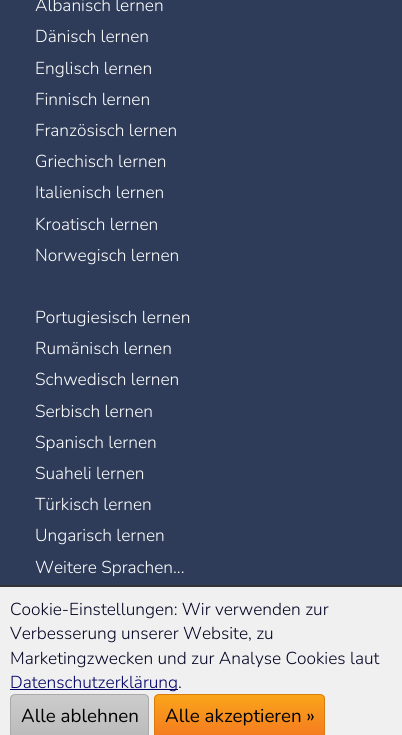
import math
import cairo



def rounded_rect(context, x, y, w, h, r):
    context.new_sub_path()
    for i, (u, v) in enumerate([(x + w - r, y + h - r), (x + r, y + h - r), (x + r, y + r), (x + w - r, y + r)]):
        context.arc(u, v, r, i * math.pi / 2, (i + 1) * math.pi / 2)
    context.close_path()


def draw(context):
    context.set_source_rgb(46 / 255, 60 / 255, 89 / 255)
    context.paint()
    context.set_source_rgb(240 / 255, 240 / 255, 240 / 255)
    context.rectangle(0, 587, 402, 148)
    context.fill()
    context.set_source_rgb(51 / 255, 51 / 255, 51 / 255)
    context.rectangle(0, 585, 402, 2)
    context.fill()
    context.set_source_rgb(0, 0, 103 / 255)
    context.rectangle(10, 689, 168, 1)
    context.fill()
    context.save()
    rounded_rect(context, 10, 694, 139, 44, 5)
    context.clip()
    gradient = cairo.LinearGradient(11, 695, 11, 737)
    gradient.add_color_stop_rgba(0, 204 / 255, 204 / 255, 204 / 255, 1)
    gradient.add_color_stop_rgba(1, 187 / 255, 187 / 255, 187 / 255, 1)
    context.set_source(gradient)
    context.rectangle(10, 695, 139, 40)
    context.fill()
    context.restore()
    rounded_rect(context, 10.5, 694.5, 138, 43, 4.5)
    context.set_source_rgb(170 / 255, 170 / 255, 170 / 255)
    context.set_line_width(1)
    context.stroke()
    context.save()
    rounded_rect(context, 154, 694, 171, 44, 5)
    context.clip()
    gradient = cairo.LinearGradient(155, 695, 155, 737)
    gradient.add_color_stop_rgba(0, 250 / 255, 165 / 255, 26 / 255, 1)
    gradient.add_color_stop_rgba(1, 244 / 255, 122 / 255, 32 / 255, 1)
    context.set_source(gradient)
    context.rectangle(154, 695, 171, 40)
    context.fill()
    context.restore()
    rounded_rect(context, 154.5, 694.5, 170, 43, 4.5)
    context.set_source_rgb(218 / 255, 124 / 255, 12 / 255)
    context.stroke()
    context.select_font_face("Nunito Light")
    context.set_font_size(17.3)
    context.set_source_rgb(1, 1, 1)
    context.move_to(35, 11)
    context.show_text("Albanisch lernen")
    context.move_to(35, 42)
    context.show_text("Dänisch lernen")
    context.move_to(35, 74)
    context.show_text("Englisch lernen")
    context.move_to(35, 105)
    context.show_text("Finnisch lernen")
    context.move_to(35, 136)
    context.show_text("Französisch lernen")
    context.move_to(35, 167)
    context.show_text("Griechisch lernen")
    context.move_to(35, 198)
    context.show_text("Italienisch lernen")
    context.move_to(35, 230)
    context.show_text("Kroatisch lernen")
    context.move_to(35, 261)
    context.show_text("Norwegisch lernen")
    context.move_to(35, 323)
    context.show_text("Portugiesisch lernen")
    context.move_to(35, 354)
    context.show_text("Rumänisch lernen")
    context.move_to(35, 385)
    context.show_text("Schwedisch lernen")
    context.move_to(35, 417)
    context.show_text("Serbisch lernen")
    context.move_to(35, 448)
    context.show_text("Spanisch lernen")
    context.move_to(35, 479)
    context.show_text("Suaheli lernen")
    context.move_to(35, 510)
    context.show_text("Türkisch lernen")
    context.move_to(35, 541)
    context.show_text("Ungarisch lernen")
    context.move_to(35, 573)
    context.show_text("Weitere Sprachen...")
    context.set_source_rgb(4 / 255, 3 / 255, 35 / 255)
    context.move_to(10, 615)
    context.show_text("Cookie-Einstellungen: Wir verwenden zur")
    context.move_to(10, 639)
    context.show_text("Verbesserung unserer Website, zu")
    context.move_to(10, 664)
    context.show_text("Marketingzwecken und zur Analyse Cookies laut")
    context.set_source_rgb(0, 0, 103 / 255)
    context.move_to(10, 688)
    context.show_text("Datenschutzerklärung")
    context.set_source_rgb(4 / 255, 3 / 255, 35 / 255)
    context.move_to(178, 688)
    context.show_text(".")
    context.select_font_face("Nunito")
    context.set_font_size(18.75)
    context.set_source_rgb(0, 0, 0)
    context.move_to(21, 722)
    context.show_text("Alle ablehnen")
    context.move_to(165, 722)
    context.show_text("Alle akzeptieren »")


surface = cairo.ImageSurface(cairo.Format.RGB24, 402, 735)
context = cairo.Context(surface)
options = cairo.FontOptions()
options.set_hint_metrics(cairo.HintMetrics.OFF)
options.set_hint_style(cairo.HintStyle.NONE)
context.set_font_options(options)
context.set_miter_limit(4)
draw(context)
surface.write_to_png("out.png")
